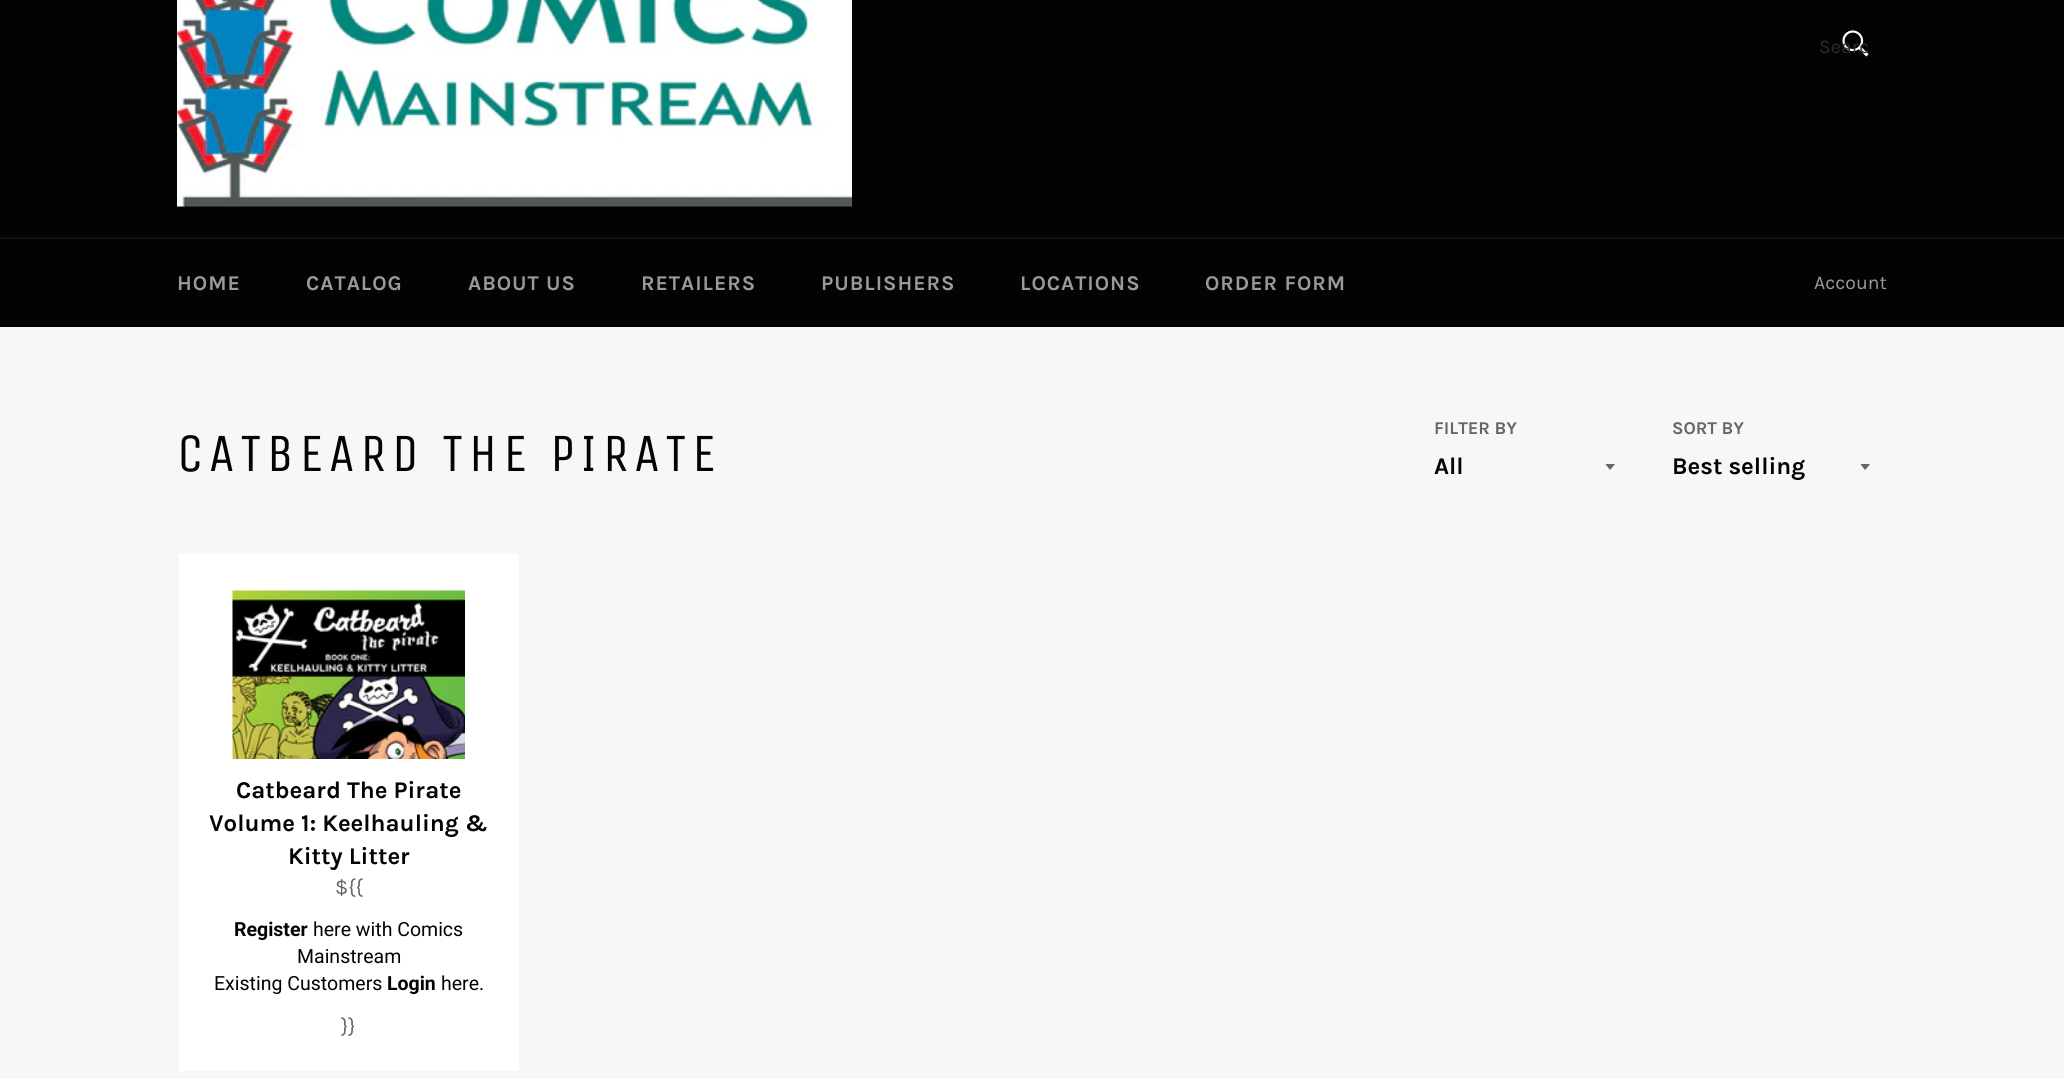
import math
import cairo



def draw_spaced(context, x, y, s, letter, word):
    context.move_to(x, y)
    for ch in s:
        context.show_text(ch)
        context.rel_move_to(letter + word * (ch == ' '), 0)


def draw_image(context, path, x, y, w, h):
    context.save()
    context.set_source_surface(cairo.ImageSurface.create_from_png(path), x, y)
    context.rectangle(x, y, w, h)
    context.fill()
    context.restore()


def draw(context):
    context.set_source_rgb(247 / 255, 247 / 255, 247 / 255)
    context.paint()
    context.set_source_rgb(3 / 255, 3 / 255, 3 / 255)
    context.rectangle(0, 0, 2064, 237)
    context.fill()
    draw_image(context, "images/1.png", 177, 0, 675, 207)
    draw_image(context, "images/2.png", 1842, 30, 27, 27)
    context.rectangle(0, 239, 2064, 88)
    context.fill()
    context.set_source_rgb(16 / 255, 16 / 255, 16 / 255)
    context.rectangle(0, 237, 2064, 2)
    context.fill()
    context.save()
    context.rectangle(1605, 464, 12, 7)
    context.clip()
    context.set_source_rgb(102 / 255, 102 / 255, 102 / 255)
    context.new_path()
    context.move_to(1605, 463.5)
    context.line_to(1610, 470)
    context.line_to(1615.5, 463.5)
    context.close_path()
    context.fill()
    context.restore()
    context.save()
    context.rectangle(1860, 464, 12, 7)
    context.clip()
    context.set_source_rgb(102 / 255, 102 / 255, 102 / 255)
    context.new_path()
    context.move_to(1860, 463.5)
    context.line_to(1865, 470)
    context.line_to(1870.5, 463.5)
    context.close_path()
    context.fill()
    context.restore()
    context.set_source_rgb(1, 1, 1)
    context.rectangle(179, 554, 340, 517)
    context.fill()
    draw_image(context, "images/3.png", 232, 590, 233, 169)
    context.save()
    context.rectangle(1820, 35, 48, 22)
    context.clip()
    context.select_font_face("Karla")
    context.set_font_size(19.5)
    context.set_source_rgb(44 / 255, 44 / 255, 44 / 255)
    context.move_to(1819, 53)
    context.show_text("Searc")
    context.restore()
    context.select_font_face("Karla", cairo.FontSlant.NORMAL, cairo.FontWeight.BOLD)
    context.set_font_size(21)
    context.set_source_rgb(154 / 255, 154 / 255, 154 / 255)
    draw_spaced(context, 177, 290, "HOME", 1, 0)
    draw_spaced(context, 306, 290, "CATALOG", 1, 0)
    draw_spaced(context, 468, 290, "ABOUT US", 1, 0)
    draw_spaced(context, 641, 290, "RETAILERS", 1, 0)
    draw_spaced(context, 821, 290, "PUBLISHERS", 1, 0)
    draw_spaced(context, 1020, 290, "LOCATIONS", 1, 0)
    draw_spaced(context, 1205, 290, "ORDER FORM", 1, 0)
    context.select_font_face("Karla")
    context.set_font_size(19.5)
    context.move_to(1814, 289)
    context.show_text("Account")
    context.select_font_face("Unica One")
    context.set_font_size(54)
    context.set_source_rgb(3 / 255, 3 / 255, 3 / 255)
    draw_spaced(context, 177, 471, "CATBEARD THE PIRATE", 5.4, 0)
    context.select_font_face("Karla", cairo.FontSlant.NORMAL, cairo.FontWeight.BOLD)
    context.set_font_size(18)
    context.set_source_rgb(102 / 255, 102 / 255, 102 / 255)
    context.move_to(1434, 434)
    context.show_text("FILTER BY")
    context.set_font_size(24)
    context.set_source_rgb(3 / 255, 3 / 255, 3 / 255)
    context.move_to(1434, 474)
    context.show_text("All")
    context.set_font_size(18)
    context.set_source_rgb(102 / 255, 102 / 255, 102 / 255)
    context.move_to(1672, 434)
    context.show_text("SORT BY")
    context.set_font_size(24)
    context.set_source_rgb(3 / 255, 3 / 255, 3 / 255)
    context.move_to(1672, 474)
    context.show_text("Best selling")
    context.move_to(236, 798)
    context.show_text("Catbeard The Pirate")
    context.move_to(209, 831)
    context.show_text("Volume 1: Keelhauling &")
    context.move_to(288, 864)
    context.show_text("Kitty Litter")
    context.select_font_face("Karla")
    context.set_font_size(21)
    context.set_source_rgb(102 / 255, 102 / 255, 102 / 255)
    context.move_to(335, 894)
    context.show_text("${{")
    context.select_font_face("Roboto", cairo.FontSlant.NORMAL, cairo.FontWeight.BOLD)
    context.set_font_size(19.5)
    context.set_source_rgb(3 / 255, 3 / 255, 3 / 255)
    context.move_to(234, 936)
    context.show_text("Register")
    context.select_font_face("Roboto")
    context.move_to(313, 936)
    context.show_text("here with Comics")
    context.move_to(297, 963)
    context.show_text("Mainstream")
    context.move_to(214, 990)
    context.show_text("Existing Customers")
    context.select_font_face("Roboto", cairo.FontSlant.NORMAL, cairo.FontWeight.BOLD)
    context.move_to(387, 990)
    context.show_text("Login")
    context.select_font_face("Roboto")
    context.move_to(441, 990)
    context.show_text("here.")
    context.select_font_face("Karla")
    context.set_font_size(21)
    context.set_source_rgb(102 / 255, 102 / 255, 102 / 255)
    context.move_to(341, 1033)
    context.show_text("}}")


surface = cairo.ImageSurface(cairo.Format.RGB24, 2064, 1079)
context = cairo.Context(surface)
options = cairo.FontOptions()
options.set_hint_metrics(cairo.HintMetrics.OFF)
options.set_hint_style(cairo.HintStyle.NONE)
context.set_font_options(options)
context.set_miter_limit(4)
draw(context)
surface.write_to_png("out.png")
